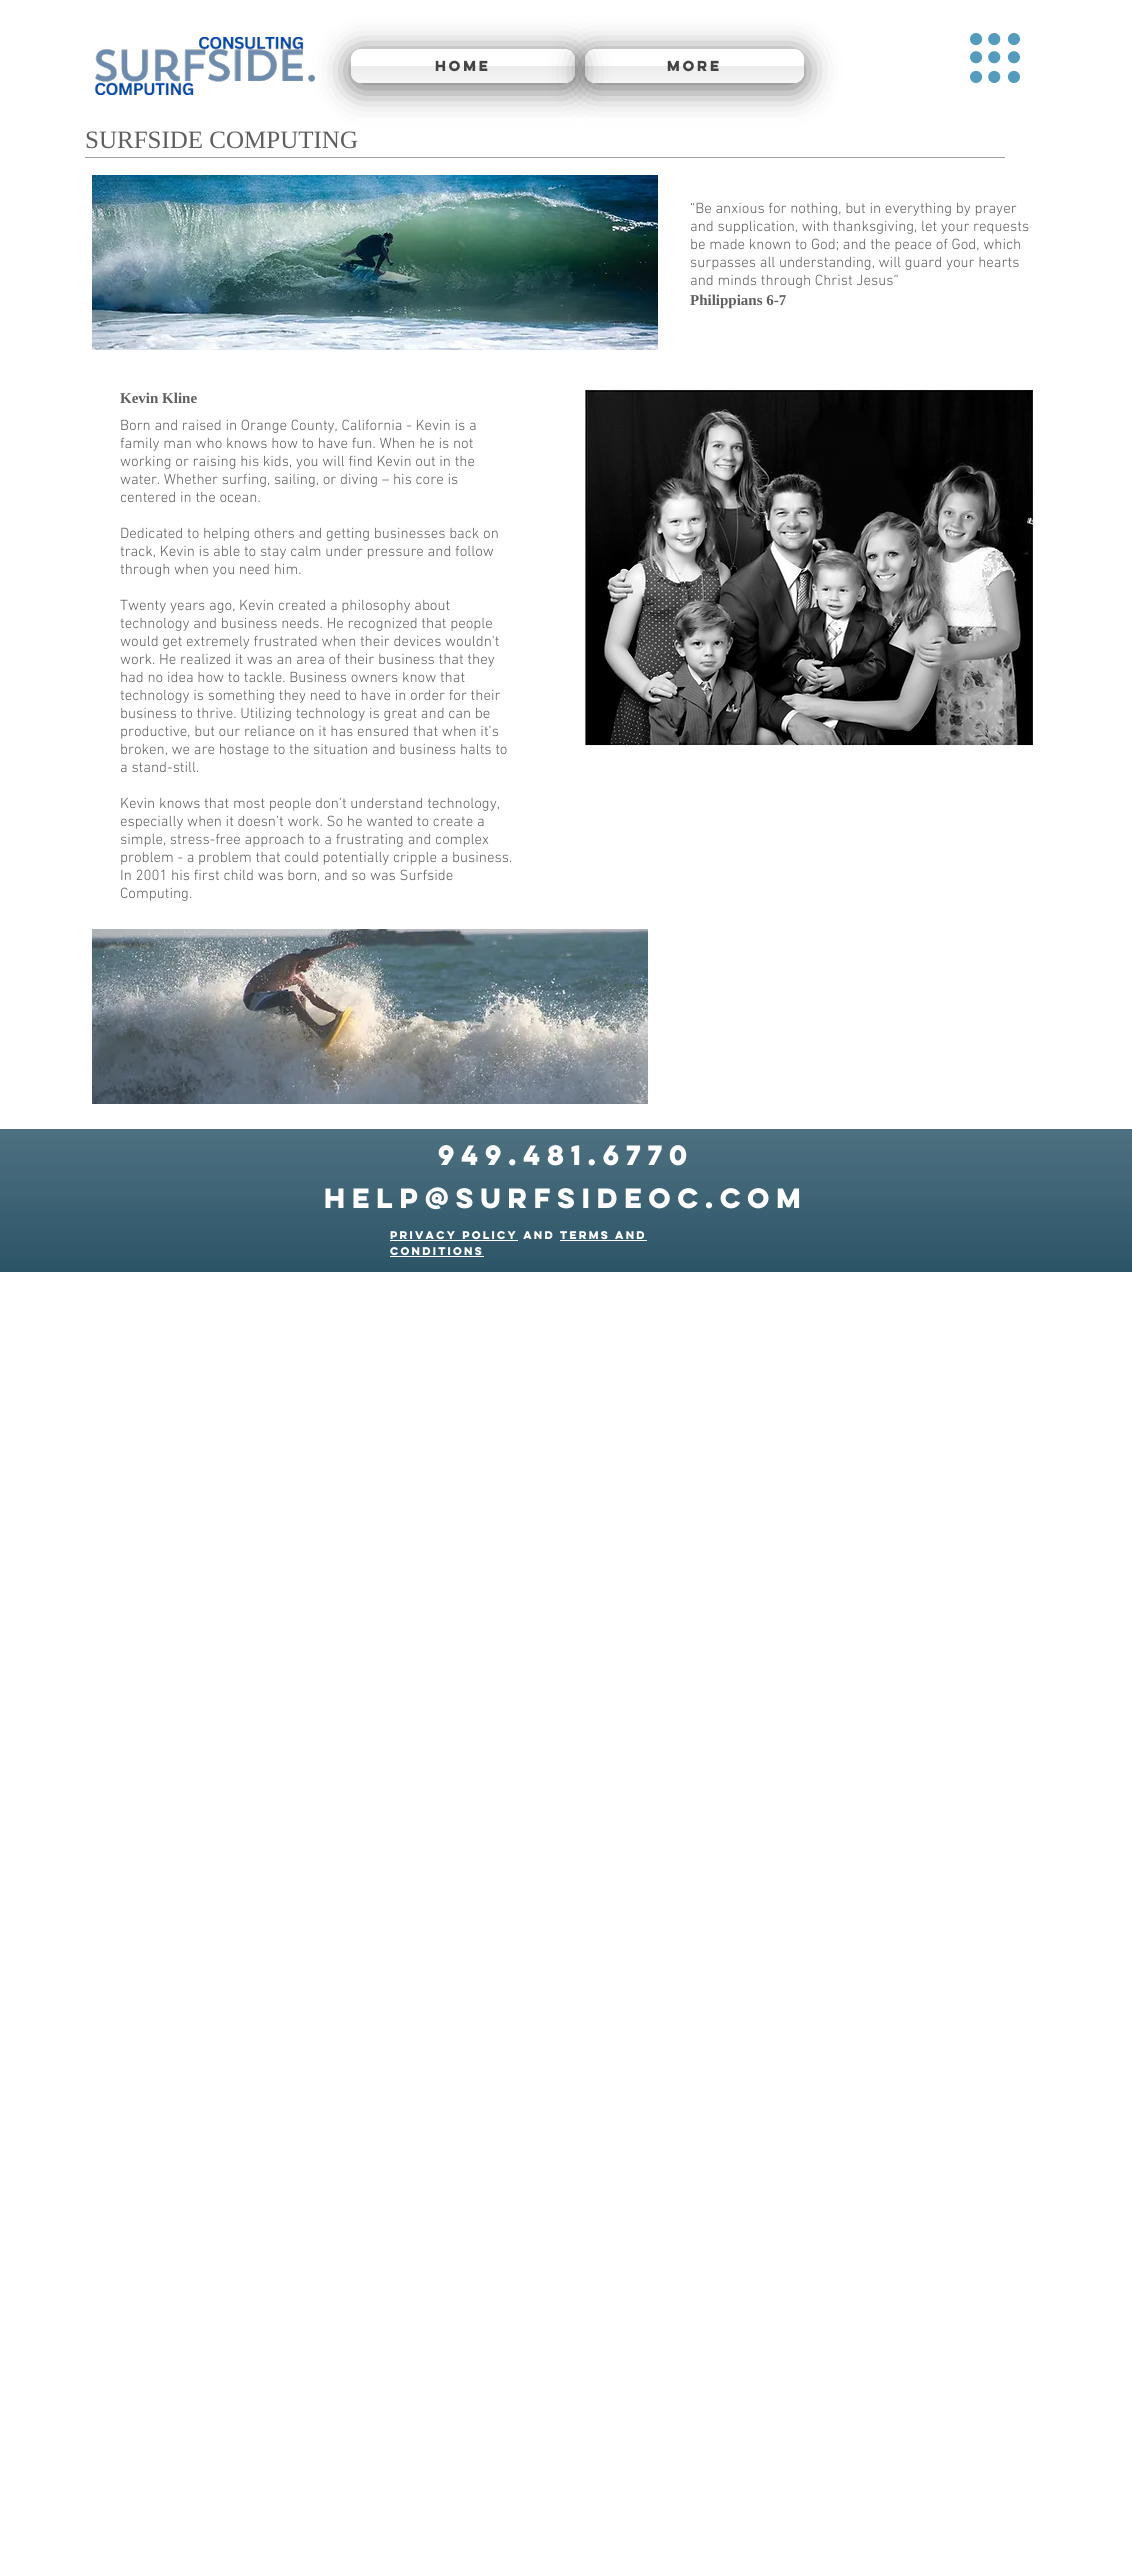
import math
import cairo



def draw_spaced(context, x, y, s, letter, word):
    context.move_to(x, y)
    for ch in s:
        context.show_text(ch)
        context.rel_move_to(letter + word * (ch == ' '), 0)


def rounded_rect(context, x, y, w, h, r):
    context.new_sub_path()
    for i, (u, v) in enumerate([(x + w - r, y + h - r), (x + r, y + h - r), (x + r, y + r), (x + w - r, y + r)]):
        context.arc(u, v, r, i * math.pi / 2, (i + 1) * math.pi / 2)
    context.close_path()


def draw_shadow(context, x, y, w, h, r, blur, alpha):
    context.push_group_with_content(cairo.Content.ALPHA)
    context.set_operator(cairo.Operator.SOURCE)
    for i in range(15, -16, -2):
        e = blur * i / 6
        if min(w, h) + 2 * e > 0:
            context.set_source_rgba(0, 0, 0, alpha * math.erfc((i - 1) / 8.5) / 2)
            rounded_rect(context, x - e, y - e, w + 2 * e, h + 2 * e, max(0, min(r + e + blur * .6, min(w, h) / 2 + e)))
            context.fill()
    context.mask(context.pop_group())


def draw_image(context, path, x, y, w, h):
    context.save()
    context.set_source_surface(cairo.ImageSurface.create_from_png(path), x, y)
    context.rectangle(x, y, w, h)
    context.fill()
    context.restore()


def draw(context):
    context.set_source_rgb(1, 1, 1)
    context.paint()
    draw_image(context, "images/1.png", 94, 37, 222, 58)
    context.save()
    context.set_fill_rule(cairo.FillRule.EVEN_ODD)
    context.new_path()
    context.move_to(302, 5)
    context.line_to(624, 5)
    context.line_to(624, 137)
    context.line_to(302, 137)
    context.close_path()
    context.move_to(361, 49)
    context.line_to(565, 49)
    context.curve_to(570.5, 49, 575, 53.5, 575, 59)
    context.line_to(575, 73)
    context.curve_to(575, 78.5, 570.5, 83, 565, 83)
    context.line_to(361, 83)
    context.curve_to(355.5, 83, 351, 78.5, 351, 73)
    context.line_to(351, 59)
    context.curve_to(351, 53.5, 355.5, 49, 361, 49)
    context.close_path()
    context.clip()
    context.set_source_rgb(0, 0, 0)
    draw_shadow(context, 351, 54, 224, 34, 10, 16, 0.59)
    context.restore()
    draw_image(context, "images/2.png", 351, 66, 224, 17)
    context.save()
    context.set_fill_rule(cairo.FillRule.EVEN_ODD)
    context.new_path()
    context.move_to(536, 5)
    context.line_to(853, 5)
    context.line_to(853, 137)
    context.line_to(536, 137)
    context.close_path()
    context.move_to(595, 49)
    context.line_to(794, 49)
    context.curve_to(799.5, 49, 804, 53.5, 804, 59)
    context.line_to(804, 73)
    context.curve_to(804, 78.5, 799.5, 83, 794, 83)
    context.line_to(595, 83)
    context.curve_to(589.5, 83, 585, 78.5, 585, 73)
    context.line_to(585, 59)
    context.curve_to(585, 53.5, 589.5, 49, 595, 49)
    context.close_path()
    context.clip()
    context.set_source_rgb(0, 0, 0)
    draw_shadow(context, 585, 54, 219, 34, 10, 16, 0.59)
    context.restore()
    draw_image(context, "images/3.png", 585, 66, 219, 17)
    draw_image(context, "images/4.png", 970, 33, 50, 50)
    context.set_source_rgb(1, 1, 1)
    context.rectangle(358, 118, 439, 4)
    context.fill()
    context.set_source_rgb(160 / 255, 160 / 255, 159 / 255)
    context.rectangle(85, 157, 920, 1)
    context.fill()
    draw_image(context, "images/5.png", 92, 175, 566, 175)
    draw_image(context, "images/6.png", 585, 389, 448, 357)
    draw_image(context, "images/7.png", 92, 929, 556, 175)
    context.set_source_rgb(16 / 255, 63 / 255, 84 / 255)
    context.rectangle(0, 1129, 1132, 143)
    context.fill()
    draw_image(context, "images/8.png", 0, 1129, 1132, 143)
    context.set_source_rgb(1, 1, 1)
    context.rectangle(390, 1240, 128, 1)
    context.fill()
    context.rectangle(560, 1240, 87, 1)
    context.fill()
    context.rectangle(390, 1256, 94, 1)
    context.fill()
    context.select_font_face("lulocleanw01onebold", cairo.FontSlant.NORMAL, cairo.FontWeight.BOLD)
    context.set_font_size(13)
    context.set_source_rgb(68 / 255, 68 / 255, 68 / 255)
    context.move_to(435, 71)
    context.show_text("HOME")
    context.move_to(667, 71)
    context.show_text("More")
    context.select_font_face("Liberation Serif")
    context.set_font_size(25)
    context.set_source_rgb(96 / 255, 94 / 255, 94 / 255)
    context.move_to(85, 148)
    context.show_text("SURFSIDE COMPUTING")
    context.select_font_face("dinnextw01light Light")
    context.set_font_size(15)
    context.move_to(690, 213)
    context.show_text("“Be anxious for nothing, but in everything by prayer")
    context.move_to(690, 231)
    context.show_text("and supplication, with thanksgiving, let your requests")
    context.move_to(690, 249)
    context.show_text("be made known to God; and the peace of God, which")
    context.move_to(690, 267)
    context.show_text("surpasses all understanding, will guard your hearts")
    context.move_to(690, 285)
    context.show_text("and minds through Christ Jesus”")
    context.select_font_face("Liberation Serif", cairo.FontSlant.NORMAL, cairo.FontWeight.BOLD)
    context.move_to(690, 305)
    context.show_text("Philippians 6-7")
    context.move_to(120, 403)
    context.show_text("Kevin Kline")
    context.select_font_face("dinnextw01light Light")
    context.move_to(120, 430)
    context.show_text("Born and raised in Orange County, California - Kevin is a")
    context.move_to(120, 448)
    context.show_text("family man who knows how to have fun. When he is not")
    context.move_to(120, 466)
    context.show_text("working or raising his kids, you will find Kevin out in the")
    context.move_to(120, 484)
    context.show_text("water. Whether surfing, sailing, or diving – his core is")
    context.move_to(120, 502)
    context.show_text("centered in the ocean.")
    context.move_to(120, 538)
    context.show_text("Dedicated to helping others and getting businesses back on")
    context.move_to(120, 556)
    context.show_text("track, Kevin is able to stay calm under pressure and follow")
    context.move_to(120, 574)
    context.show_text("through when you need him.")
    context.move_to(120, 610)
    context.show_text("Twenty years ago, Kevin created a philosophy about")
    context.move_to(120, 628)
    context.show_text("technology and business needs. He recognized that people")
    context.move_to(120, 646)
    context.show_text("would get extremely frustrated when their devices wouldn't")
    context.move_to(120, 664)
    context.show_text("work. He realized it was an area of their business that they")
    context.move_to(120, 682)
    context.show_text("had no idea how to tackle. Business owners know that")
    context.move_to(120, 700)
    context.show_text("technology is something they need to have in order for their")
    context.move_to(120, 718)
    context.show_text("business to thrive. Utilizing technology is great and can be")
    context.move_to(120, 736)
    context.show_text("productive, but our reliance on it has ensured that when it’s")
    context.move_to(120, 754)
    context.show_text("broken, we are hostage to the situation and business halts to")
    context.move_to(120, 772)
    context.show_text("a stand-still.")
    context.move_to(120, 808)
    context.show_text("Kevin knows that most people don’t understand technology,")
    context.move_to(120, 826)
    context.show_text("especially when it doesn’t work. So he wanted to create a")
    context.move_to(120, 844)
    context.show_text("simple, stress-free approach to a frustrating and complex")
    context.move_to(120, 862)
    context.show_text("problem - a problem that could potentially cripple a business.")
    context.move_to(120, 880)
    context.show_text("In 2001 his first child was born, and so was Surfside")
    context.move_to(120, 898)
    context.show_text("Computing.")
    context.select_font_face("lulocleanw01onebold", cairo.FontSlant.NORMAL, cairo.FontWeight.BOLD)
    context.set_font_size(25)
    context.set_source_rgb(1, 1, 1)
    draw_spaced(context, 438, 1165, "949.481.6770", 1.25, 0)
    draw_spaced(context, 324, 1208, "Help@SurfSideOC.com", 1.25, 0)
    context.set_font_size(10)
    context.move_to(390, 1239)
    context.show_text("Privacy Policy and terms and")
    context.move_to(390, 1255)
    context.show_text("conditions")


surface = cairo.ImageSurface(cairo.Format.RGB24, 1132, 2567)
context = cairo.Context(surface)
options = cairo.FontOptions()
options.set_hint_metrics(cairo.HintMetrics.OFF)
options.set_hint_style(cairo.HintStyle.NONE)
context.set_font_options(options)
context.set_miter_limit(4)
draw(context)
surface.write_to_png("out.png")
